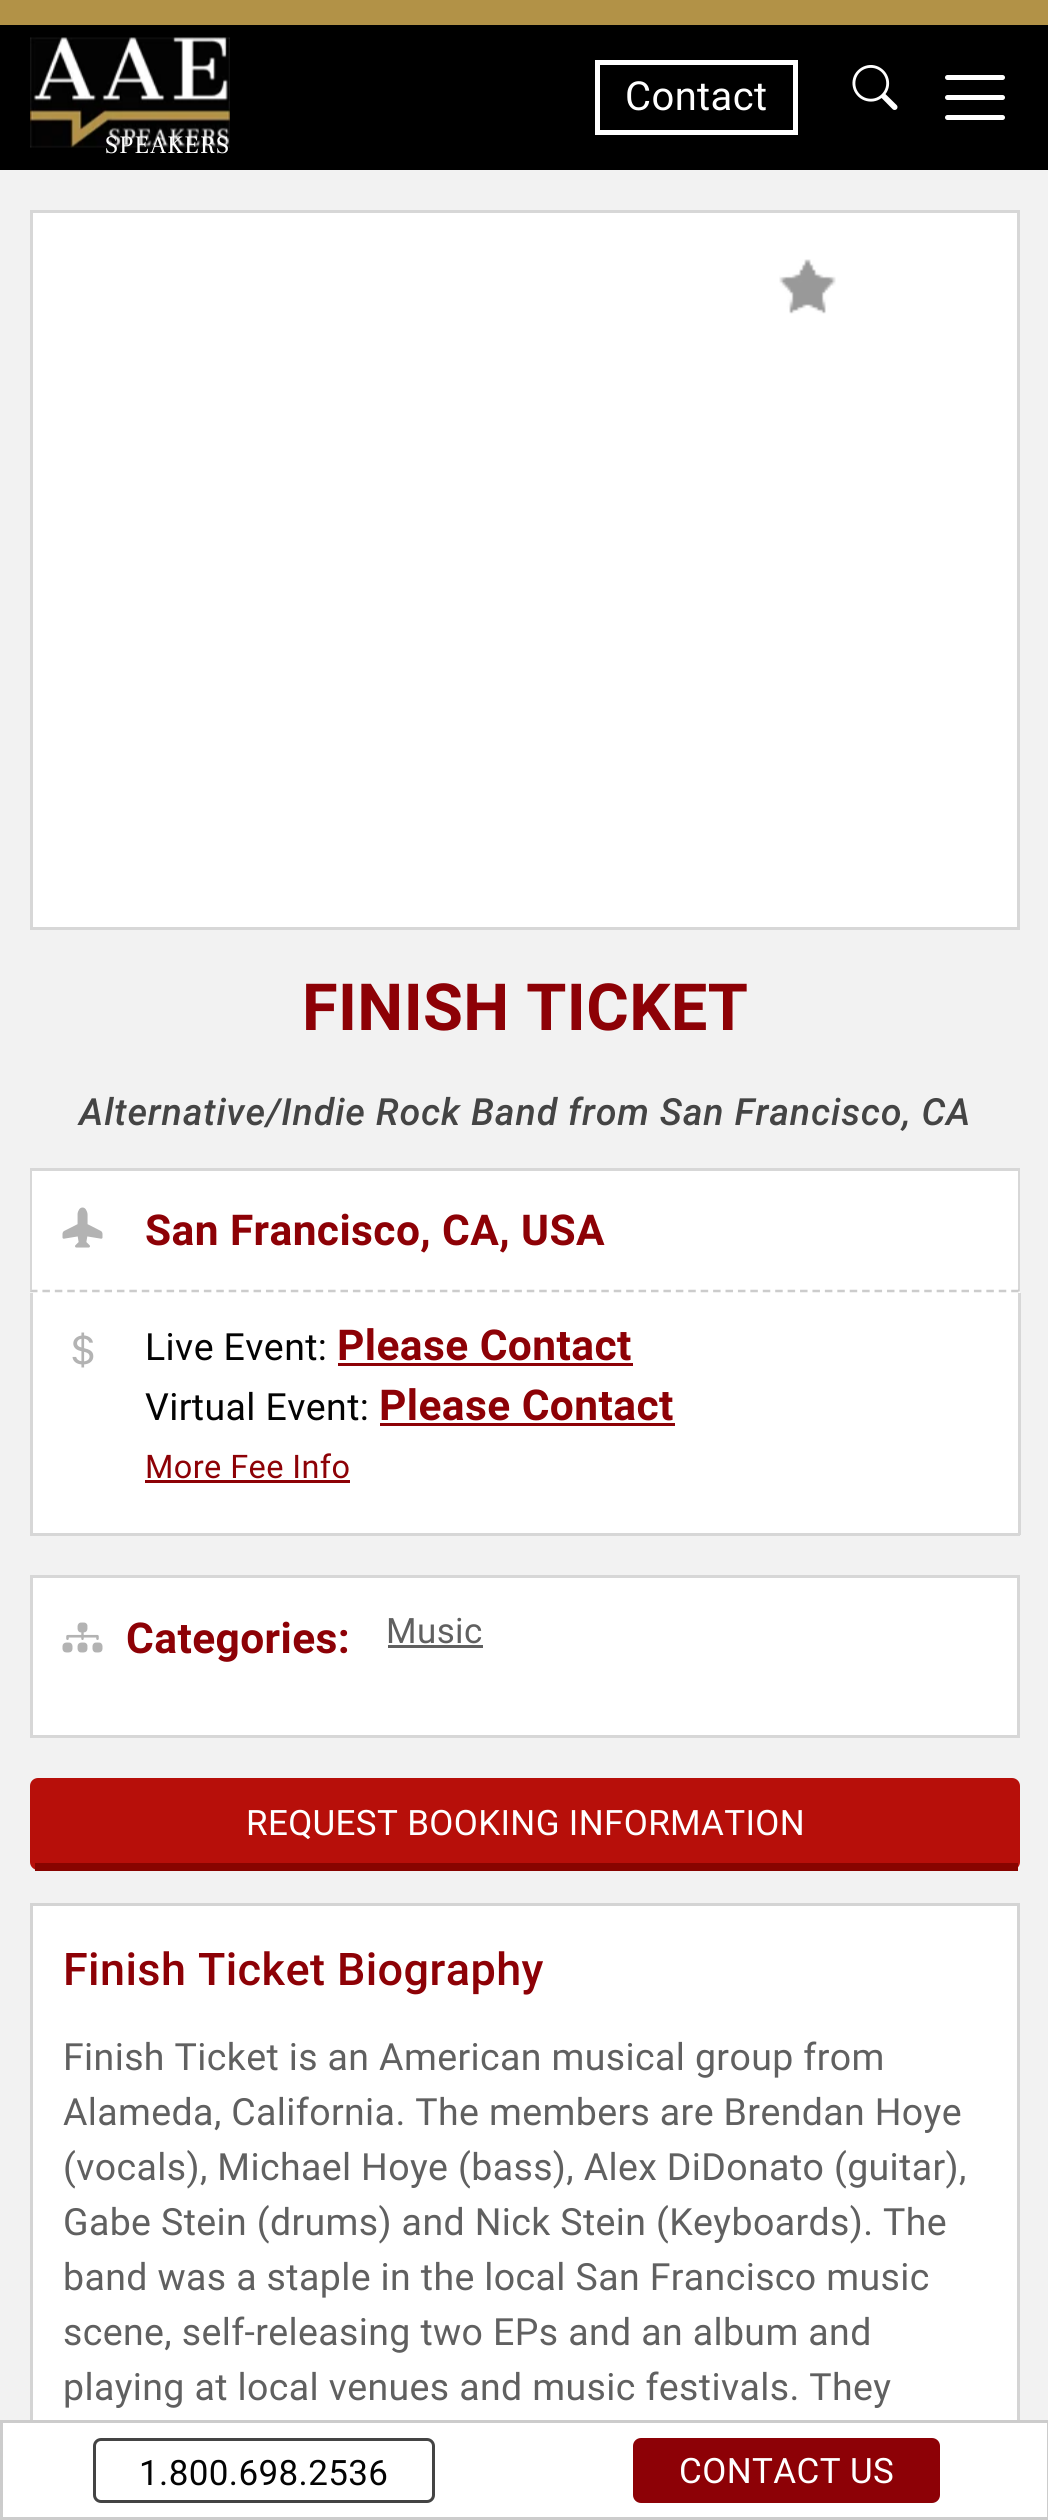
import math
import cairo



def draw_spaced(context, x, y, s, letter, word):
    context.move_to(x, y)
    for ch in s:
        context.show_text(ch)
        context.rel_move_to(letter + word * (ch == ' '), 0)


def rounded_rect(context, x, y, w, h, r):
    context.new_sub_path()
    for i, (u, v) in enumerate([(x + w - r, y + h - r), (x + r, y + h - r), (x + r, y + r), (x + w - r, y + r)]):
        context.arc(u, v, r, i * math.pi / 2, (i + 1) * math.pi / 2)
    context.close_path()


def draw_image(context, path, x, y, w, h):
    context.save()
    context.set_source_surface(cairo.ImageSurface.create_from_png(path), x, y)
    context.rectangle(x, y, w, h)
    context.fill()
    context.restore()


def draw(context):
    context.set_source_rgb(242 / 255, 242 / 255, 242 / 255)
    context.paint()
    context.set_source_rgb(178 / 255, 146 / 255, 71 / 255)
    context.rectangle(0, 0, 1048, 25)
    context.fill()
    context.set_source_rgb(0, 0, 0)
    context.rectangle(0, 25, 1048, 145)
    context.fill()
    context.rectangle(597.5, 62.5, 198, 70)
    context.set_source_rgb(1, 1, 1)
    context.set_line_width(5)
    context.stroke()
    draw_image(context, "images/1.png", 852, 65, 46, 45)
    context.new_path()
    context.move_to(947.5, 77.5)
    context.line_to(1002.5, 77.5)
    context.move_to(947.5, 97.5)
    context.line_to(1002.5, 97.5)
    context.move_to(947.5, 117.5)
    context.line_to(1002.5, 117.5)
    context.set_line_cap(cairo.LineCap.ROUND)
    context.stroke()
    draw_image(context, "images/2.png", 30, 37, 200, 111)
    context.rectangle(31.5, 211.5, 987, 717)
    context.fill_preserve()
    context.set_source_rgb(215 / 255, 215 / 255, 215 / 255)
    context.set_line_width(3)
    context.set_line_cap(cairo.LineCap.BUTT)
    context.stroke()
    draw_image(context, "images/3.png", 779, 259, 57, 55)
    context.set_source_rgb(1, 1, 1)
    context.rectangle(30, 1171, 990, 122)
    context.fill()
    context.set_source_rgb(215 / 255, 215 / 255, 215 / 255)
    context.rectangle(30, 1168, 990, 3)
    context.fill()
    context.new_path()
    context.move_to(1020, 1168)
    context.line_to(1020, 1292)
    context.line_to(1018, 1290)
    context.line_to(1018, 1170)
    context.close_path()
    context.fill()
    context.new_path()
    context.move_to(30, 1291)
    context.line_to(1020, 1291)
    context.set_source_rgba(0, 0, 0, 0.2)
    context.set_line_width(2.5)
    context.set_dash([7.5, 4.92])
    context.stroke()
    context.set_source_rgb(215 / 255, 215 / 255, 215 / 255)
    context.new_path()
    context.move_to(30, 1292)
    context.line_to(30, 1168)
    context.line_to(32, 1170)
    context.line_to(32, 1290)
    context.close_path()
    context.fill()
    draw_image(context, "images/4.png", 62, 1207, 41, 41)
    context.set_source_rgb(1, 1, 1)
    context.rectangle(33, 1293, 985, 240)
    context.fill()
    context.set_source_rgb(215 / 255, 215 / 255, 215 / 255)
    context.rectangle(1018, 1293, 3, 242)
    context.fill()
    context.rectangle(30, 1533, 990, 3)
    context.fill()
    context.rectangle(30, 1293, 3, 242)
    context.fill()
    draw_image(context, "images/5.png", 72, 1332, 22, 36)
    context.set_source_rgb(141 / 255, 1 / 255, 6 / 255)
    context.rectangle(338, 1363, 295, 3)
    context.fill()
    context.rectangle(380, 1423, 295, 3)
    context.fill()
    context.rectangle(145, 1480, 205, 3)
    context.fill()
    context.set_source_rgb(1, 1, 1)
    context.rectangle(31.5, 1576.5, 987, 160)
    context.fill_preserve()
    context.set_source_rgb(215 / 255, 215 / 255, 215 / 255)
    context.set_line_width(3)
    context.set_dash([])
    context.stroke()
    draw_image(context, "images/6.png", 62, 1622, 41, 31)
    context.set_source_rgb(96 / 255, 96 / 255, 96 / 255)
    context.rectangle(388, 1645, 95, 3)
    context.fill()
    context.set_source_rgb(183 / 255, 15 / 255, 10 / 255)
    rounded_rect(context, 30, 1778, 990, 92, 8)
    context.fill()
    context.set_source_rgb(136 / 255, 4 / 255, 0)
    context.rectangle(35, 1863, 983, 8)
    context.fill()
    context.set_source_rgb(1, 1, 1)
    context.rectangle(33, 1906, 984, 514)
    context.fill()
    context.rectangle(31.5, 1904.5, 987, 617)
    context.set_source_rgb(212 / 255, 212 / 255, 212 / 255)
    context.stroke()
    context.set_source_rgb(1, 1, 1)
    context.rectangle(1.5, 2421.5, 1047, 97)
    context.fill_preserve()
    context.set_source_rgb(204 / 255, 204 / 255, 204 / 255)
    context.stroke()
    rounded_rect(context, 94.5, 2439.5, 339, 62, 6.5)
    context.set_source_rgb(68 / 255, 68 / 255, 68 / 255)
    context.stroke()
    context.set_source_rgb(141 / 255, 1 / 255, 6 / 255)
    rounded_rect(context, 633, 2438, 307, 65, 8)
    context.fill()
    context.select_font_face("Roboto")
    context.set_font_size(40)
    context.set_source_rgb(1, 1, 1)
    draw_spaced(context, 625, 110, "Contact", 0.4, 0)
    context.select_font_face("Frank Ruhl Libre")
    context.set_font_size(25)
    draw_spaced(context, 105, 153, "SPEAKERS", 1, 0)
    context.select_font_face("Roboto", cairo.FontSlant.NORMAL, cairo.FontWeight.BOLD)
    context.set_font_size(65)
    context.set_source_rgb(141 / 255, 1 / 255, 6 / 255)
    draw_spaced(context, 302, 1030, "FINISH TICKET", 0.4, 0)
    context.select_font_face("Roboto Medium", cairo.FontSlant.ITALIC)
    context.set_font_size(37.5)
    context.set_source_rgb(68 / 255, 68 / 255, 68 / 255)
    draw_spaced(context, 79, 1125, "Alternative/Indie Rock Band from San Francisco, CA", 0.75, 0)
    context.select_font_face("Roboto", cairo.FontSlant.NORMAL, cairo.FontWeight.BOLD)
    context.set_font_size(42.5)
    context.set_source_rgb(141 / 255, 1 / 255, 6 / 255)
    draw_spaced(context, 145, 1245, "San Francisco, CA, USA", 0.4, 0)
    context.select_font_face("Roboto")
    context.set_font_size(37.5)
    context.set_source_rgb(3 / 255, 3 / 255, 3 / 255)
    draw_spaced(context, 145, 1360, "Live Event:", 0.4, 0)
    context.select_font_face("Roboto", cairo.FontSlant.NORMAL, cairo.FontWeight.BOLD)
    context.set_font_size(42.5)
    context.set_source_rgb(141 / 255, 1 / 255, 6 / 255)
    draw_spaced(context, 337, 1360, "Please Contact", 0.4, 0)
    context.select_font_face("Roboto")
    context.set_font_size(37.5)
    context.set_source_rgb(3 / 255, 3 / 255, 3 / 255)
    draw_spaced(context, 145, 1420, "Virtual Event:", 0.4, 0)
    context.select_font_face("Roboto", cairo.FontSlant.NORMAL, cairo.FontWeight.BOLD)
    context.set_font_size(42.5)
    context.set_source_rgb(141 / 255, 1 / 255, 6 / 255)
    draw_spaced(context, 379, 1420, "Please Contact", 0.4, 0)
    context.select_font_face("Roboto")
    context.set_font_size(32.5)
    draw_spaced(context, 145, 1478, "More Fee Info", 0.4, 0)
    context.select_font_face("Roboto", cairo.FontSlant.NORMAL, cairo.FontWeight.BOLD)
    context.set_font_size(42.5)
    draw_spaced(context, 126, 1653, "Categories:", 0.4, 0)
    context.select_font_face("Roboto")
    context.set_font_size(35)
    context.set_source_rgb(96 / 255, 96 / 255, 96 / 255)
    draw_spaced(context, 386, 1643, "Music", 0.4, 0)
    context.set_source_rgb(1, 1, 1)
    draw_spaced(context, 246, 1835, "REQUEST BOOKING INFORMATION", 0.35, 0)
    context.select_font_face("Roboto Medium")
    context.set_font_size(45)
    context.set_source_rgb(141 / 255, 1 / 255, 6 / 255)
    draw_spaced(context, 63, 1985, "Finish Ticket Biography", 0.4, 0)
    context.select_font_face("Roboto")
    context.set_font_size(37.5)
    context.set_source_rgb(96 / 255, 96 / 255, 96 / 255)
    draw_spaced(context, 63, 2070, "Finish Ticket is an American musical group from", 0.38, 0)
    draw_spaced(context, 63, 2125, "Alameda, California. The members are Brendan Hoye", 0.38, 0)
    draw_spaced(context, 63, 2180, "(vocals), Michael Hoye (bass), Alex DiDonato (guitar),", 0.38, 0)
    draw_spaced(context, 63, 2235, "Gabe Stein (drums) and Nick Stein (Keyboards). The", 0.38, 0)
    draw_spaced(context, 63, 2290, "band was a staple in the local San Francisco music", 0.38, 0)
    draw_spaced(context, 63, 2345, "scene, self-releasing two EPs and an album and", 0.38, 0)
    draw_spaced(context, 63, 2400, "playing at local venues and music festivals. They", 0.38, 0)
    context.set_font_size(35)
    context.set_source_rgb(3 / 255, 3 / 255, 3 / 255)
    draw_spaced(context, 139, 2485, "1.800.698.2536", 0.4, 0)
    context.set_source_rgb(1, 1, 1)
    draw_spaced(context, 679, 2483, "CONTACT US", 0.4, 0)


surface = cairo.ImageSurface(cairo.Format.RGB24, 1048, 2520)
context = cairo.Context(surface)
options = cairo.FontOptions()
options.set_hint_metrics(cairo.HintMetrics.OFF)
options.set_hint_style(cairo.HintStyle.NONE)
context.set_font_options(options)
context.set_miter_limit(4)
draw(context)
surface.write_to_png("out.png")
